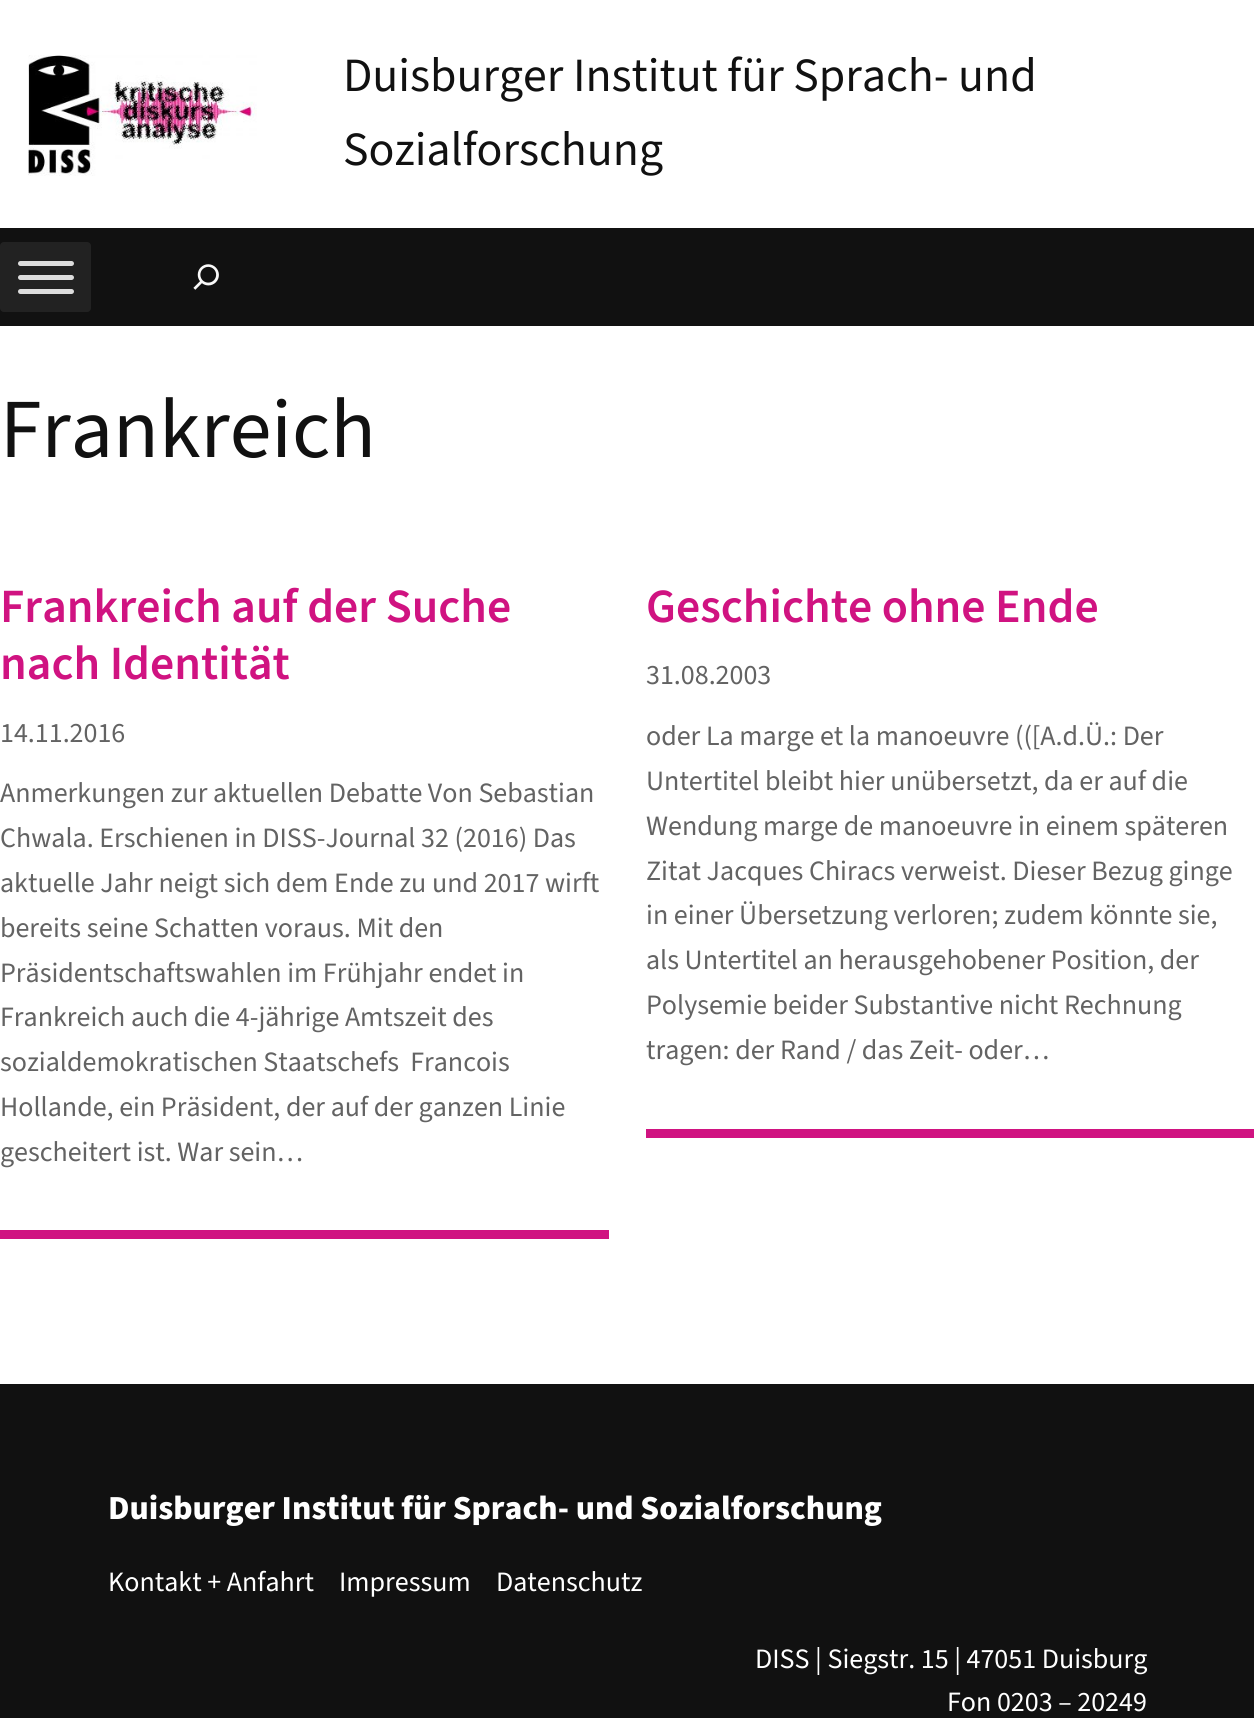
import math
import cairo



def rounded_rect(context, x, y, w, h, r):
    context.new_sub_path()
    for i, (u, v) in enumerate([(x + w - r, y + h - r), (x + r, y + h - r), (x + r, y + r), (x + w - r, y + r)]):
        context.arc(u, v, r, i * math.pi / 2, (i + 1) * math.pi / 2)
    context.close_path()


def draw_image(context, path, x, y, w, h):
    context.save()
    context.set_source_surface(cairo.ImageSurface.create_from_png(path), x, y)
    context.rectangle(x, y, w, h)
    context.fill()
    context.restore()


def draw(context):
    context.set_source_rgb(1, 1, 1)
    context.paint()
    draw_image(context, "images/1.png", 28, 55, 229, 121)
    context.set_source_rgb(17 / 255, 17 / 255, 17 / 255)
    context.rectangle(0, 228, 1254, 98)
    context.fill()
    context.set_source_rgb(34 / 255, 34 / 255, 34 / 255)
    rounded_rect(context, 0, 242, 91, 70, 4)
    context.fill()
    context.set_source_rgb(221 / 255, 221 / 255, 221 / 255)
    rounded_rect(context, 18, 261, 56, 5, 2.5)
    context.fill()
    rounded_rect(context, 18, 275, 56, 5, 2.5)
    context.fill()
    rounded_rect(context, 18, 289, 56, 5, 2.5)
    context.fill()
    draw_image(context, "images/2.png", 193, 264, 26, 26)
    context.set_source_rgb(208 / 255, 19 / 255, 129 / 255)
    context.rectangle(0, 1230, 609, 9)
    context.fill()
    context.rectangle(646, 1129, 608, 9)
    context.fill()
    context.set_source_rgb(17 / 255, 17 / 255, 17 / 255)
    context.rectangle(0, 1384, 1254, 334)
    context.fill()
    context.select_font_face("Source Sans 3")
    context.set_font_size(47.75)
    context.move_to(343, 91)
    context.show_text("Duisburger Institut für Sprach- und")
    context.move_to(343, 165)
    context.show_text("Sozialforschung")
    context.set_font_size(84)
    context.move_to(0, 457)
    context.show_text("Frankreich")
    context.select_font_face("Source Sans 3 SemiBold")
    context.set_font_size(47.75)
    context.set_source_rgb(208 / 255, 19 / 255, 129 / 255)
    context.move_to(0, 622)
    context.show_text("Frankreich auf der Suche")
    context.move_to(0, 679)
    context.show_text("nach Identität")
    context.select_font_face("Source Sans 3")
    context.set_font_size(28)
    context.set_source_rgb(99 / 255, 99 / 255, 99 / 255)
    context.move_to(0, 742)
    context.show_text("14.11.2016")
    context.move_to(0, 802)
    context.show_text("Anmerkungen zur aktuellen Debatte Von Sebastian")
    context.move_to(0, 847)
    context.show_text("Chwala. Erschienen in DISS-Journal 32 (2016) Das")
    context.move_to(0, 892)
    context.show_text("aktuelle Jahr neigt sich dem Ende zu und 2017 wirft")
    context.move_to(0, 937)
    context.show_text("bereits seine Schatten voraus. Mit den")
    context.move_to(0, 982)
    context.show_text("Präsidentschaftswahlen im Frühjahr endet in")
    context.move_to(0, 1026)
    context.show_text("Frankreich auch die 4-jährige Amtszeit des")
    context.move_to(0, 1071)
    context.show_text("sozialdemokratischen Staatschefs  Francois")
    context.move_to(0, 1116)
    context.show_text("Hollande, ein Präsident, der auf der ganzen Linie")
    context.move_to(0, 1161)
    context.show_text("gescheitert ist. War sein…")
    context.select_font_face("Source Sans 3 SemiBold")
    context.set_font_size(47.75)
    context.set_source_rgb(208 / 255, 19 / 255, 129 / 255)
    context.move_to(646, 622)
    context.show_text("Geschichte ohne Ende")
    context.select_font_face("Source Sans 3")
    context.set_font_size(28)
    context.set_source_rgb(99 / 255, 99 / 255, 99 / 255)
    context.move_to(646, 684)
    context.show_text("31.08.2003")
    context.move_to(646, 745)
    context.show_text("oder La marge et la manoeuvre (([A.d.Ü.: Der")
    context.move_to(646, 790)
    context.show_text("Untertitel bleibt hier unübersetzt, da er auf die")
    context.move_to(646, 835)
    context.show_text("Wendung marge de manoeuvre in einem späteren")
    context.move_to(646, 880)
    context.show_text("Zitat Jacques Chiracs verweist. Dieser Bezug ginge")
    context.move_to(646, 924)
    context.show_text("in einer Übersetzung verloren; zudem könnte sie,")
    context.move_to(646, 969)
    context.show_text("als Untertitel an herausgehobener Position, der")
    context.move_to(646, 1014)
    context.show_text("Polysemie beider Substantive nicht Rechnung")
    context.move_to(646, 1059)
    context.show_text("tragen: der Rand / das Zeit- oder…")
    context.select_font_face("Source Sans 3 ExtraBold")
    context.set_font_size(33.6)
    context.set_source_rgb(1, 1, 1)
    context.move_to(108, 1519)
    context.show_text("Duisburger Institut für Sprach- und Sozialforschung")
    context.select_font_face("Source Sans 3")
    context.set_font_size(28)
    context.move_to(108, 1591)
    context.show_text("Kontakt + Anfahrt")
    context.move_to(339, 1591)
    context.show_text("Impressum")
    context.move_to(496, 1591)
    context.show_text("Datenschutz")
    context.move_to(755, 1668)
    context.show_text("DISS | Siegstr. 15 | 47051 Duisburg")
    context.move_to(947, 1711)
    context.show_text("Fon 0203 – 20249")


surface = cairo.ImageSurface(cairo.Format.RGB24, 1254, 1718)
context = cairo.Context(surface)
options = cairo.FontOptions()
options.set_hint_metrics(cairo.HintMetrics.OFF)
options.set_hint_style(cairo.HintStyle.NONE)
context.set_font_options(options)
context.set_miter_limit(4)
draw(context)
surface.write_to_png("out.png")
